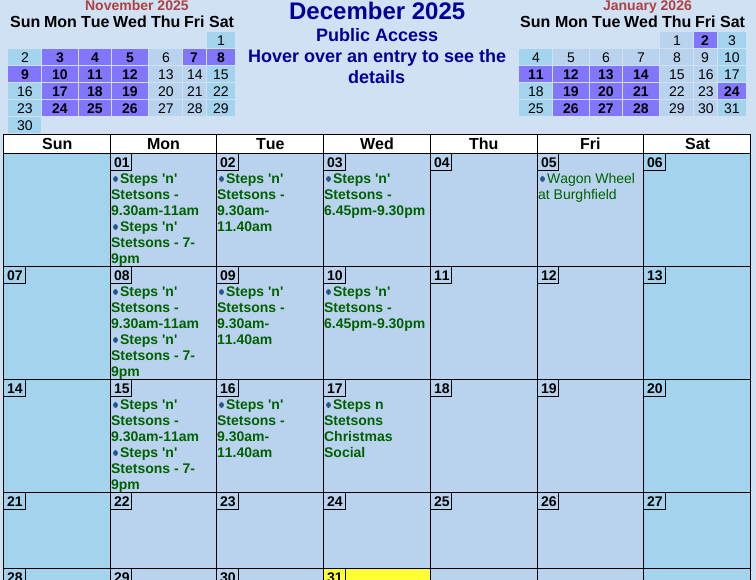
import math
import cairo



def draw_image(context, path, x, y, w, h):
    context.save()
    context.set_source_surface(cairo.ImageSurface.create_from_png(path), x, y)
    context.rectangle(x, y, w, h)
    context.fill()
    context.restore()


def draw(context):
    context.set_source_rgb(207 / 255, 225 / 255, 243 / 255)
    context.paint()
    context.set_source_rgb(164 / 255, 211 / 255, 238 / 255)
    context.rectangle(207, 32, 28, 16)
    context.fill()
    context.rectangle(8, 49, 33, 16)
    context.fill()
    context.set_source_rgb(131 / 255, 118 / 255, 254 / 255)
    context.rectangle(42, 49, 36, 16)
    context.fill()
    context.rectangle(79, 49, 32, 16)
    context.fill()
    context.rectangle(112, 49, 36, 16)
    context.fill()
    context.set_source_rgb(185 / 255, 211 / 255, 238 / 255)
    context.rectangle(149, 49, 33, 16)
    context.fill()
    context.set_source_rgb(131 / 255, 118 / 255, 254 / 255)
    context.rectangle(183, 49, 23, 16)
    context.fill()
    context.rectangle(207, 49, 28, 16)
    context.fill()
    context.rectangle(8, 66, 33, 16)
    context.fill()
    context.rectangle(42, 66, 36, 16)
    context.fill()
    context.rectangle(79, 66, 32, 16)
    context.fill()
    context.rectangle(112, 66, 36, 16)
    context.fill()
    context.set_source_rgb(185 / 255, 211 / 255, 238 / 255)
    context.rectangle(149, 66, 33, 16)
    context.fill()
    context.rectangle(183, 66, 23, 16)
    context.fill()
    context.set_source_rgb(164 / 255, 211 / 255, 238 / 255)
    context.rectangle(207, 66, 28, 16)
    context.fill()
    context.rectangle(8, 83, 33, 16)
    context.fill()
    context.set_source_rgb(131 / 255, 118 / 255, 254 / 255)
    context.rectangle(42, 83, 36, 16)
    context.fill()
    context.rectangle(79, 83, 32, 16)
    context.fill()
    context.rectangle(112, 83, 36, 16)
    context.fill()
    context.set_source_rgb(185 / 255, 211 / 255, 238 / 255)
    context.rectangle(149, 83, 33, 16)
    context.fill()
    context.rectangle(183, 83, 23, 16)
    context.fill()
    context.set_source_rgb(164 / 255, 211 / 255, 238 / 255)
    context.rectangle(207, 83, 28, 16)
    context.fill()
    context.rectangle(8, 100, 33, 16)
    context.fill()
    context.set_source_rgb(131 / 255, 118 / 255, 254 / 255)
    context.rectangle(42, 100, 36, 16)
    context.fill()
    context.rectangle(79, 100, 32, 16)
    context.fill()
    context.rectangle(112, 100, 36, 16)
    context.fill()
    context.set_source_rgb(185 / 255, 211 / 255, 238 / 255)
    context.rectangle(149, 100, 33, 16)
    context.fill()
    context.rectangle(183, 100, 23, 16)
    context.fill()
    context.set_source_rgb(164 / 255, 211 / 255, 238 / 255)
    context.rectangle(207, 100, 28, 16)
    context.fill()
    context.rectangle(8, 117, 33, 16)
    context.fill()
    context.set_source_rgb(185 / 255, 211 / 255, 238 / 255)
    context.rectangle(660, 32, 33, 16)
    context.fill()
    context.set_source_rgb(131 / 255, 118 / 255, 254 / 255)
    context.rectangle(694, 32, 23, 16)
    context.fill()
    context.set_source_rgb(164 / 255, 211 / 255, 238 / 255)
    context.rectangle(718, 32, 28, 16)
    context.fill()
    context.rectangle(519, 49, 33, 16)
    context.fill()
    context.set_source_rgb(185 / 255, 211 / 255, 238 / 255)
    context.rectangle(553, 49, 36, 16)
    context.fill()
    context.rectangle(590, 49, 32, 16)
    context.fill()
    context.rectangle(623, 49, 36, 16)
    context.fill()
    context.rectangle(660, 49, 33, 16)
    context.fill()
    context.rectangle(694, 49, 23, 16)
    context.fill()
    context.set_source_rgb(164 / 255, 211 / 255, 238 / 255)
    context.rectangle(718, 49, 28, 16)
    context.fill()
    context.set_source_rgb(131 / 255, 118 / 255, 254 / 255)
    context.rectangle(519, 66, 33, 16)
    context.fill()
    context.rectangle(553, 66, 36, 16)
    context.fill()
    context.rectangle(590, 66, 32, 16)
    context.fill()
    context.rectangle(623, 66, 36, 16)
    context.fill()
    context.set_source_rgb(185 / 255, 211 / 255, 238 / 255)
    context.rectangle(660, 66, 33, 16)
    context.fill()
    context.rectangle(694, 66, 23, 16)
    context.fill()
    context.set_source_rgb(164 / 255, 211 / 255, 238 / 255)
    context.rectangle(718, 66, 28, 16)
    context.fill()
    context.rectangle(519, 83, 33, 16)
    context.fill()
    context.set_source_rgb(131 / 255, 118 / 255, 254 / 255)
    context.rectangle(553, 83, 36, 16)
    context.fill()
    context.rectangle(590, 83, 32, 16)
    context.fill()
    context.rectangle(623, 83, 36, 16)
    context.fill()
    context.set_source_rgb(185 / 255, 211 / 255, 238 / 255)
    context.rectangle(660, 83, 33, 16)
    context.fill()
    context.rectangle(694, 83, 23, 16)
    context.fill()
    context.set_source_rgb(131 / 255, 118 / 255, 254 / 255)
    context.rectangle(718, 83, 28, 16)
    context.fill()
    context.set_source_rgb(164 / 255, 211 / 255, 238 / 255)
    context.rectangle(519, 100, 33, 16)
    context.fill()
    context.set_source_rgb(131 / 255, 118 / 255, 254 / 255)
    context.rectangle(553, 100, 36, 16)
    context.fill()
    context.rectangle(590, 100, 32, 16)
    context.fill()
    context.rectangle(623, 100, 36, 16)
    context.fill()
    context.set_source_rgb(185 / 255, 211 / 255, 238 / 255)
    context.rectangle(660, 100, 33, 16)
    context.fill()
    context.rectangle(694, 100, 23, 16)
    context.fill()
    context.set_source_rgb(164 / 255, 211 / 255, 238 / 255)
    context.rectangle(718, 100, 28, 16)
    context.fill()
    context.set_source_rgb(0, 0, 0)
    context.rectangle(750, 134, 1, 446)
    context.fill()
    context.set_source_rgb(1, 1, 1)
    context.rectangle(4, 135, 106, 18)
    context.fill()
    context.set_source_rgb(0, 0, 0)
    context.rectangle(3, 134, 747, 1)
    context.fill()
    context.rectangle(3, 134, 1, 19)
    context.fill()
    context.set_source_rgb(1, 1, 1)
    context.rectangle(111, 135, 105, 18)
    context.fill()
    context.set_source_rgb(0, 0, 0)
    context.rectangle(110, 134, 1, 19)
    context.fill()
    context.set_source_rgb(1, 1, 1)
    context.rectangle(217, 135, 106, 18)
    context.fill()
    context.set_source_rgb(0, 0, 0)
    context.rectangle(216, 134, 1, 19)
    context.fill()
    context.set_source_rgb(1, 1, 1)
    context.rectangle(324, 135, 106, 18)
    context.fill()
    context.set_source_rgb(0, 0, 0)
    context.rectangle(323, 134, 1, 19)
    context.fill()
    context.set_source_rgb(1, 1, 1)
    context.rectangle(431, 135, 106, 18)
    context.fill()
    context.set_source_rgb(0, 0, 0)
    context.rectangle(430, 134, 1, 19)
    context.fill()
    context.set_source_rgb(1, 1, 1)
    context.rectangle(538, 135, 105, 18)
    context.fill()
    context.set_source_rgb(0, 0, 0)
    context.rectangle(537, 134, 1, 19)
    context.fill()
    context.set_source_rgb(1, 1, 1)
    context.rectangle(644, 135, 106, 18)
    context.fill()
    context.set_source_rgb(0, 0, 0)
    context.rectangle(643, 134, 1, 19)
    context.fill()
    context.set_source_rgb(164 / 255, 211 / 255, 238 / 255)
    context.rectangle(4, 154, 106, 112)
    context.fill()
    context.set_source_rgb(0, 0, 0)
    context.rectangle(3, 153, 747, 1)
    context.fill()
    context.rectangle(3, 153, 1, 113)
    context.fill()
    context.set_source_rgb(185 / 255, 211 / 255, 238 / 255)
    context.rectangle(111, 154, 105, 112)
    context.fill()
    context.set_source_rgb(0, 0, 0)
    context.rectangle(110, 153, 1, 113)
    context.fill()
    context.rectangle(131, 154, 1, 17)
    context.fill()
    context.rectangle(111, 170, 21, 1)
    context.fill()
    draw_image(context, "images/1.png", 113, 176, 5, 6)
    draw_image(context, "images/1.png", 113, 224, 5, 6)
    context.set_source_rgb(185 / 255, 211 / 255, 238 / 255)
    context.rectangle(217, 154, 106, 112)
    context.fill()
    context.set_source_rgb(0, 0, 0)
    context.rectangle(216, 153, 1, 113)
    context.fill()
    context.rectangle(238, 154, 1, 17)
    context.fill()
    context.rectangle(217, 170, 22, 1)
    context.fill()
    draw_image(context, "images/1.png", 219, 176, 5, 6)
    context.set_source_rgb(185 / 255, 211 / 255, 238 / 255)
    context.rectangle(324, 154, 106, 112)
    context.fill()
    context.set_source_rgb(0, 0, 0)
    context.rectangle(323, 153, 1, 113)
    context.fill()
    context.rectangle(345, 154, 1, 17)
    context.fill()
    context.rectangle(324, 170, 22, 1)
    context.fill()
    draw_image(context, "images/1.png", 326, 176, 5, 6)
    context.set_source_rgb(185 / 255, 211 / 255, 238 / 255)
    context.rectangle(431, 154, 106, 112)
    context.fill()
    context.set_source_rgb(0, 0, 0)
    context.rectangle(430, 153, 1, 113)
    context.fill()
    context.rectangle(451, 154, 1, 17)
    context.fill()
    context.rectangle(431, 170, 21, 1)
    context.fill()
    context.set_source_rgb(185 / 255, 211 / 255, 238 / 255)
    context.rectangle(538, 154, 105, 112)
    context.fill()
    context.set_source_rgb(0, 0, 0)
    context.rectangle(537, 153, 1, 113)
    context.fill()
    context.rectangle(558, 154, 1, 17)
    context.fill()
    context.rectangle(538, 170, 21, 1)
    context.fill()
    draw_image(context, "images/1.png", 540, 176, 5, 6)
    context.set_source_rgb(164 / 255, 211 / 255, 238 / 255)
    context.rectangle(644, 154, 106, 112)
    context.fill()
    context.set_source_rgb(0, 0, 0)
    context.rectangle(643, 153, 1, 113)
    context.fill()
    context.rectangle(665, 154, 1, 17)
    context.fill()
    context.rectangle(644, 170, 22, 1)
    context.fill()
    context.set_source_rgb(164 / 255, 211 / 255, 238 / 255)
    context.rectangle(4, 267, 106, 112)
    context.fill()
    context.set_source_rgb(0, 0, 0)
    context.rectangle(3, 266, 747, 1)
    context.fill()
    context.rectangle(3, 266, 1, 113)
    context.fill()
    context.rectangle(25, 267, 1, 17)
    context.fill()
    context.rectangle(4, 283, 22, 1)
    context.fill()
    context.set_source_rgb(185 / 255, 211 / 255, 238 / 255)
    context.rectangle(111, 267, 105, 112)
    context.fill()
    context.set_source_rgb(0, 0, 0)
    context.rectangle(110, 266, 1, 113)
    context.fill()
    context.rectangle(131, 267, 1, 17)
    context.fill()
    context.rectangle(111, 283, 21, 1)
    context.fill()
    draw_image(context, "images/1.png", 113, 289, 5, 6)
    draw_image(context, "images/1.png", 113, 337, 5, 6)
    context.set_source_rgb(185 / 255, 211 / 255, 238 / 255)
    context.rectangle(217, 267, 106, 112)
    context.fill()
    context.set_source_rgb(0, 0, 0)
    context.rectangle(216, 266, 1, 113)
    context.fill()
    context.rectangle(238, 267, 1, 17)
    context.fill()
    context.rectangle(217, 283, 22, 1)
    context.fill()
    draw_image(context, "images/1.png", 219, 289, 5, 6)
    context.set_source_rgb(185 / 255, 211 / 255, 238 / 255)
    context.rectangle(324, 267, 106, 112)
    context.fill()
    context.set_source_rgb(0, 0, 0)
    context.rectangle(323, 266, 1, 113)
    context.fill()
    context.rectangle(345, 267, 1, 17)
    context.fill()
    context.rectangle(324, 283, 22, 1)
    context.fill()
    draw_image(context, "images/1.png", 326, 289, 5, 6)
    context.set_source_rgb(185 / 255, 211 / 255, 238 / 255)
    context.rectangle(431, 267, 106, 112)
    context.fill()
    context.set_source_rgb(0, 0, 0)
    context.rectangle(430, 266, 1, 113)
    context.fill()
    context.rectangle(451, 267, 1, 17)
    context.fill()
    context.rectangle(431, 283, 21, 1)
    context.fill()
    context.set_source_rgb(185 / 255, 211 / 255, 238 / 255)
    context.rectangle(538, 267, 105, 112)
    context.fill()
    context.set_source_rgb(0, 0, 0)
    context.rectangle(537, 266, 1, 113)
    context.fill()
    context.rectangle(558, 267, 1, 17)
    context.fill()
    context.rectangle(538, 283, 21, 1)
    context.fill()
    context.set_source_rgb(164 / 255, 211 / 255, 238 / 255)
    context.rectangle(644, 267, 106, 112)
    context.fill()
    context.set_source_rgb(0, 0, 0)
    context.rectangle(643, 266, 1, 113)
    context.fill()
    context.rectangle(665, 267, 1, 17)
    context.fill()
    context.rectangle(644, 283, 22, 1)
    context.fill()
    context.set_source_rgb(164 / 255, 211 / 255, 238 / 255)
    context.rectangle(4, 380, 106, 112)
    context.fill()
    context.set_source_rgb(0, 0, 0)
    context.rectangle(3, 379, 747, 1)
    context.fill()
    context.rectangle(3, 379, 1, 113)
    context.fill()
    context.rectangle(25, 380, 1, 17)
    context.fill()
    context.rectangle(4, 396, 22, 1)
    context.fill()
    context.set_source_rgb(185 / 255, 211 / 255, 238 / 255)
    context.rectangle(111, 380, 105, 112)
    context.fill()
    context.set_source_rgb(0, 0, 0)
    context.rectangle(110, 379, 1, 113)
    context.fill()
    context.rectangle(131, 380, 1, 17)
    context.fill()
    context.rectangle(111, 396, 21, 1)
    context.fill()
    draw_image(context, "images/1.png", 113, 402, 5, 6)
    draw_image(context, "images/1.png", 113, 450, 5, 6)
    context.set_source_rgb(185 / 255, 211 / 255, 238 / 255)
    context.rectangle(217, 380, 106, 112)
    context.fill()
    context.set_source_rgb(0, 0, 0)
    context.rectangle(216, 379, 1, 113)
    context.fill()
    context.rectangle(238, 380, 1, 17)
    context.fill()
    context.rectangle(217, 396, 22, 1)
    context.fill()
    draw_image(context, "images/1.png", 219, 402, 5, 6)
    context.set_source_rgb(185 / 255, 211 / 255, 238 / 255)
    context.rectangle(324, 380, 106, 112)
    context.fill()
    context.set_source_rgb(0, 0, 0)
    context.rectangle(323, 379, 1, 113)
    context.fill()
    context.rectangle(345, 380, 1, 17)
    context.fill()
    context.rectangle(324, 396, 22, 1)
    context.fill()
    draw_image(context, "images/1.png", 326, 402, 5, 6)
    context.set_source_rgb(185 / 255, 211 / 255, 238 / 255)
    context.rectangle(431, 380, 106, 112)
    context.fill()
    context.set_source_rgb(0, 0, 0)
    context.rectangle(430, 379, 1, 113)
    context.fill()
    context.rectangle(451, 380, 1, 17)
    context.fill()
    context.rectangle(431, 396, 21, 1)
    context.fill()
    context.set_source_rgb(185 / 255, 211 / 255, 238 / 255)
    context.rectangle(538, 380, 105, 112)
    context.fill()
    context.set_source_rgb(0, 0, 0)
    context.rectangle(537, 379, 1, 113)
    context.fill()
    context.rectangle(558, 380, 1, 17)
    context.fill()
    context.rectangle(538, 396, 21, 1)
    context.fill()
    context.set_source_rgb(164 / 255, 211 / 255, 238 / 255)
    context.rectangle(644, 380, 106, 112)
    context.fill()
    context.set_source_rgb(0, 0, 0)
    context.rectangle(643, 379, 1, 113)
    context.fill()
    context.rectangle(665, 380, 1, 17)
    context.fill()
    context.rectangle(644, 396, 22, 1)
    context.fill()
    context.set_source_rgb(164 / 255, 211 / 255, 238 / 255)
    context.rectangle(4, 493, 106, 75)
    context.fill()
    context.set_source_rgb(0, 0, 0)
    context.rectangle(3, 492, 747, 1)
    context.fill()
    context.rectangle(3, 492, 1, 76)
    context.fill()
    context.rectangle(25, 493, 1, 17)
    context.fill()
    context.rectangle(4, 509, 22, 1)
    context.fill()
    context.set_source_rgb(185 / 255, 211 / 255, 238 / 255)
    context.rectangle(111, 493, 105, 75)
    context.fill()
    context.set_source_rgb(0, 0, 0)
    context.rectangle(110, 492, 1, 76)
    context.fill()
    context.rectangle(131, 493, 1, 17)
    context.fill()
    context.rectangle(111, 509, 21, 1)
    context.fill()
    context.set_source_rgb(185 / 255, 211 / 255, 238 / 255)
    context.rectangle(217, 493, 106, 75)
    context.fill()
    context.set_source_rgb(0, 0, 0)
    context.rectangle(216, 492, 1, 76)
    context.fill()
    context.rectangle(238, 493, 1, 17)
    context.fill()
    context.rectangle(217, 509, 22, 1)
    context.fill()
    context.set_source_rgb(185 / 255, 211 / 255, 238 / 255)
    context.rectangle(324, 493, 106, 75)
    context.fill()
    context.set_source_rgb(0, 0, 0)
    context.rectangle(323, 492, 1, 76)
    context.fill()
    context.rectangle(345, 493, 1, 17)
    context.fill()
    context.rectangle(324, 509, 22, 1)
    context.fill()
    context.set_source_rgb(185 / 255, 211 / 255, 238 / 255)
    context.rectangle(431, 493, 106, 75)
    context.fill()
    context.set_source_rgb(0, 0, 0)
    context.rectangle(430, 492, 1, 76)
    context.fill()
    context.rectangle(451, 493, 1, 17)
    context.fill()
    context.rectangle(431, 509, 21, 1)
    context.fill()
    context.set_source_rgb(185 / 255, 211 / 255, 238 / 255)
    context.rectangle(538, 493, 105, 75)
    context.fill()
    context.set_source_rgb(0, 0, 0)
    context.rectangle(537, 492, 1, 76)
    context.fill()
    context.rectangle(558, 493, 1, 17)
    context.fill()
    context.rectangle(538, 509, 21, 1)
    context.fill()
    context.set_source_rgb(164 / 255, 211 / 255, 238 / 255)
    context.rectangle(644, 493, 106, 75)
    context.fill()
    context.set_source_rgb(0, 0, 0)
    context.rectangle(643, 492, 1, 76)
    context.fill()
    context.rectangle(665, 493, 1, 17)
    context.fill()
    context.rectangle(644, 509, 22, 1)
    context.fill()
    context.set_source_rgb(164 / 255, 211 / 255, 238 / 255)
    context.rectangle(4, 569, 106, 11)
    context.fill()
    context.set_source_rgb(0, 0, 0)
    context.rectangle(3, 568, 747, 1)
    context.fill()
    context.rectangle(3, 568, 1, 12)
    context.fill()
    context.rectangle(25, 569, 1, 11)
    context.fill()
    context.set_source_rgb(185 / 255, 211 / 255, 238 / 255)
    context.rectangle(111, 569, 105, 11)
    context.fill()
    context.set_source_rgb(0, 0, 0)
    context.rectangle(110, 568, 1, 12)
    context.fill()
    context.rectangle(131, 569, 1, 11)
    context.fill()
    context.set_source_rgb(185 / 255, 211 / 255, 238 / 255)
    context.rectangle(217, 569, 106, 11)
    context.fill()
    context.set_source_rgb(0, 0, 0)
    context.rectangle(216, 568, 1, 12)
    context.fill()
    context.rectangle(238, 569, 1, 11)
    context.fill()
    context.set_source_rgb(1, 1, 51 / 255)
    context.rectangle(324, 569, 106, 11)
    context.fill()
    context.set_source_rgb(0, 0, 0)
    context.rectangle(323, 568, 1, 12)
    context.fill()
    context.rectangle(345, 569, 1, 11)
    context.fill()
    context.set_source_rgb(185 / 255, 211 / 255, 238 / 255)
    context.rectangle(431, 569, 106, 11)
    context.fill()
    context.set_source_rgb(0, 0, 0)
    context.rectangle(430, 568, 1, 12)
    context.fill()
    context.set_source_rgb(185 / 255, 211 / 255, 238 / 255)
    context.rectangle(538, 569, 105, 11)
    context.fill()
    context.set_source_rgb(0, 0, 0)
    context.rectangle(537, 568, 1, 12)
    context.fill()
    context.set_source_rgb(164 / 255, 211 / 255, 238 / 255)
    context.rectangle(644, 569, 106, 11)
    context.fill()
    context.set_source_rgb(0, 0, 0)
    context.rectangle(643, 568, 1, 12)
    context.fill()
    context.select_font_face("Liberation Sans", cairo.FontSlant.NORMAL, cairo.FontWeight.BOLD)
    context.set_font_size(14)
    context.set_source_rgb(176 / 255, 64 / 255, 64 / 255)
    context.move_to(85, 10)
    context.show_text("November 2025")
    context.set_font_size(16)
    context.set_source_rgb(0, 0, 0)
    context.move_to(10, 27)
    context.show_text("Sun")
    context.move_to(44, 27)
    context.show_text("Mon")
    context.move_to(81, 27)
    context.show_text("Tue")
    context.move_to(113, 27)
    context.show_text("Wed")
    context.move_to(151, 27)
    context.show_text("Thu")
    context.move_to(184, 27)
    context.show_text("Fri")
    context.move_to(209, 27)
    context.show_text("Sat")
    context.select_font_face("Liberation Sans")
    context.set_font_size(14)
    context.move_to(217, 45)
    context.show_text("1")
    context.move_to(21, 62)
    context.show_text("2")
    context.select_font_face("Liberation Sans", cairo.FontSlant.NORMAL, cairo.FontWeight.BOLD)
    context.move_to(56, 62)
    context.show_text("3")
    context.move_to(91, 62)
    context.show_text("4")
    context.move_to(126, 62)
    context.show_text("5")
    context.select_font_face("Liberation Sans")
    context.move_to(162, 62)
    context.show_text("6")
    context.select_font_face("Liberation Sans", cairo.FontSlant.NORMAL, cairo.FontWeight.BOLD)
    context.move_to(190, 62)
    context.show_text("7")
    context.move_to(217, 62)
    context.show_text("8")
    context.move_to(21, 79)
    context.show_text("9")
    context.move_to(52, 79)
    context.show_text("10")
    context.move_to(87, 79)
    context.show_text("11")
    context.move_to(122, 79)
    context.show_text("12")
    context.select_font_face("Liberation Sans")
    context.move_to(158, 79)
    context.show_text("13")
    context.move_to(187, 79)
    context.show_text("14")
    context.move_to(213, 79)
    context.show_text("15")
    context.move_to(17, 96)
    context.show_text("16")
    context.select_font_face("Liberation Sans", cairo.FontSlant.NORMAL, cairo.FontWeight.BOLD)
    context.move_to(52, 96)
    context.show_text("17")
    context.move_to(87, 96)
    context.show_text("18")
    context.move_to(122, 96)
    context.show_text("19")
    context.select_font_face("Liberation Sans")
    context.move_to(158, 96)
    context.show_text("20")
    context.move_to(187, 96)
    context.show_text("21")
    context.move_to(213, 96)
    context.show_text("22")
    context.move_to(17, 113)
    context.show_text("23")
    context.select_font_face("Liberation Sans", cairo.FontSlant.NORMAL, cairo.FontWeight.BOLD)
    context.move_to(52, 113)
    context.show_text("24")
    context.move_to(87, 113)
    context.show_text("25")
    context.move_to(122, 113)
    context.show_text("26")
    context.select_font_face("Liberation Sans")
    context.move_to(158, 113)
    context.show_text("27")
    context.move_to(187, 113)
    context.show_text("28")
    context.move_to(213, 113)
    context.show_text("29")
    context.move_to(17, 130)
    context.show_text("30")
    context.select_font_face("Liberation Sans", cairo.FontSlant.NORMAL, cairo.FontWeight.BOLD)
    context.set_font_size(24)
    context.set_source_rgb(0, 0, 153 / 255)
    context.move_to(289, 19)
    context.show_text("December 2025")
    context.set_font_size(18)
    context.move_to(316, 41)
    context.show_text("Public Access")
    context.move_to(248, 62)
    context.show_text("Hover over an entry to see the")
    context.move_to(348, 83)
    context.show_text("details")
    context.set_font_size(14)
    context.set_source_rgb(176 / 255, 64 / 255, 64 / 255)
    context.move_to(603, 10)
    context.show_text("January 2026")
    context.set_font_size(16)
    context.set_source_rgb(0, 0, 0)
    context.move_to(520, 27)
    context.show_text("Sun")
    context.move_to(555, 27)
    context.show_text("Mon")
    context.move_to(592, 27)
    context.show_text("Tue")
    context.move_to(624, 27)
    context.show_text("Wed")
    context.move_to(662, 27)
    context.show_text("Thu")
    context.move_to(695, 27)
    context.show_text("Fri")
    context.move_to(720, 27)
    context.show_text("Sat")
    context.select_font_face("Liberation Sans")
    context.set_font_size(14)
    context.move_to(673, 45)
    context.show_text("1")
    context.select_font_face("Liberation Sans", cairo.FontSlant.NORMAL, cairo.FontWeight.BOLD)
    context.move_to(701, 45)
    context.show_text("2")
    context.select_font_face("Liberation Sans")
    context.move_to(728, 45)
    context.show_text("3")
    context.move_to(532, 62)
    context.show_text("4")
    context.move_to(567, 62)
    context.show_text("5")
    context.move_to(602, 62)
    context.show_text("6")
    context.move_to(637, 62)
    context.show_text("7")
    context.move_to(673, 62)
    context.show_text("8")
    context.move_to(701, 62)
    context.show_text("9")
    context.move_to(724, 62)
    context.show_text("10")
    context.select_font_face("Liberation Sans", cairo.FontSlant.NORMAL, cairo.FontWeight.BOLD)
    context.move_to(528, 79)
    context.show_text("11")
    context.move_to(563, 79)
    context.show_text("12")
    context.move_to(598, 79)
    context.show_text("13")
    context.move_to(633, 79)
    context.show_text("14")
    context.select_font_face("Liberation Sans")
    context.move_to(669, 79)
    context.show_text("15")
    context.move_to(698, 79)
    context.show_text("16")
    context.move_to(724, 79)
    context.show_text("17")
    context.move_to(528, 96)
    context.show_text("18")
    context.select_font_face("Liberation Sans", cairo.FontSlant.NORMAL, cairo.FontWeight.BOLD)
    context.move_to(563, 96)
    context.show_text("19")
    context.move_to(598, 96)
    context.show_text("20")
    context.move_to(633, 96)
    context.show_text("21")
    context.select_font_face("Liberation Sans")
    context.move_to(669, 96)
    context.show_text("22")
    context.move_to(698, 96)
    context.show_text("23")
    context.select_font_face("Liberation Sans", cairo.FontSlant.NORMAL, cairo.FontWeight.BOLD)
    context.move_to(724, 96)
    context.show_text("24")
    context.select_font_face("Liberation Sans")
    context.move_to(528, 113)
    context.show_text("25")
    context.select_font_face("Liberation Sans", cairo.FontSlant.NORMAL, cairo.FontWeight.BOLD)
    context.move_to(563, 113)
    context.show_text("26")
    context.move_to(598, 113)
    context.show_text("27")
    context.move_to(633, 113)
    context.show_text("28")
    context.select_font_face("Liberation Sans")
    context.move_to(669, 113)
    context.show_text("29")
    context.move_to(698, 113)
    context.show_text("30")
    context.move_to(724, 113)
    context.show_text("31")
    context.select_font_face("Liberation Sans", cairo.FontSlant.NORMAL, cairo.FontWeight.BOLD)
    context.set_font_size(16)
    context.move_to(42, 149)
    context.show_text("Sun")
    context.move_to(147, 149)
    context.show_text("Mon")
    context.move_to(256, 149)
    context.show_text("Tue")
    context.move_to(360, 149)
    context.show_text("Wed")
    context.move_to(469, 149)
    context.show_text("Thu")
    context.move_to(580, 149)
    context.show_text("Fri")
    context.move_to(685, 149)
    context.show_text("Sat")
    context.set_font_size(14)
    context.move_to(114, 167)
    context.show_text("01")
    context.set_source_rgb(0, 96 / 255, 0)
    context.move_to(120, 183)
    context.show_text("Steps 'n'")
    context.move_to(111, 199)
    context.show_text("Stetsons -")
    context.move_to(111, 215)
    context.show_text("9.30am-11am")
    context.move_to(120, 231)
    context.show_text("Steps 'n'")
    context.move_to(111, 247)
    context.show_text("Stetsons - 7-")
    context.move_to(111, 263)
    context.show_text("9pm")
    context.set_source_rgb(0, 0, 0)
    context.move_to(220, 167)
    context.show_text("02")
    context.set_source_rgb(0, 96 / 255, 0)
    context.move_to(226, 183)
    context.show_text("Steps 'n'")
    context.move_to(217, 199)
    context.show_text("Stetsons -")
    context.move_to(217, 215)
    context.show_text("9.30am-")
    context.move_to(217, 231)
    context.show_text("11.40am")
    context.set_source_rgb(0, 0, 0)
    context.move_to(327, 167)
    context.show_text("03")
    context.set_source_rgb(0, 96 / 255, 0)
    context.move_to(333, 183)
    context.show_text("Steps 'n'")
    context.move_to(324, 199)
    context.show_text("Stetsons -")
    context.move_to(324, 215)
    context.show_text("6.45pm-9.30pm")
    context.set_source_rgb(0, 0, 0)
    context.move_to(434, 167)
    context.show_text("04")
    context.move_to(541, 167)
    context.show_text("05")
    context.select_font_face("Liberation Sans")
    context.set_source_rgb(0, 96 / 255, 0)
    context.move_to(547, 183)
    context.show_text("Wagon Wheel")
    context.move_to(538, 199)
    context.show_text("at Burghfield")
    context.select_font_face("Liberation Sans", cairo.FontSlant.NORMAL, cairo.FontWeight.BOLD)
    context.set_source_rgb(0, 0, 0)
    context.move_to(647, 167)
    context.show_text("06")
    context.move_to(7, 280)
    context.show_text("07")
    context.move_to(114, 280)
    context.show_text("08")
    context.set_source_rgb(0, 96 / 255, 0)
    context.move_to(120, 296)
    context.show_text("Steps 'n'")
    context.move_to(111, 312)
    context.show_text("Stetsons -")
    context.move_to(111, 328)
    context.show_text("9.30am-11am")
    context.move_to(120, 344)
    context.show_text("Steps 'n'")
    context.move_to(111, 360)
    context.show_text("Stetsons - 7-")
    context.move_to(111, 376)
    context.show_text("9pm")
    context.set_source_rgb(0, 0, 0)
    context.move_to(220, 280)
    context.show_text("09")
    context.set_source_rgb(0, 96 / 255, 0)
    context.move_to(226, 296)
    context.show_text("Steps 'n'")
    context.move_to(217, 312)
    context.show_text("Stetsons -")
    context.move_to(217, 328)
    context.show_text("9.30am-")
    context.move_to(217, 344)
    context.show_text("11.40am")
    context.set_source_rgb(0, 0, 0)
    context.move_to(327, 280)
    context.show_text("10")
    context.set_source_rgb(0, 96 / 255, 0)
    context.move_to(333, 296)
    context.show_text("Steps 'n'")
    context.move_to(324, 312)
    context.show_text("Stetsons -")
    context.move_to(324, 328)
    context.show_text("6.45pm-9.30pm")
    context.set_source_rgb(0, 0, 0)
    context.move_to(434, 280)
    context.show_text("11")
    context.move_to(541, 280)
    context.show_text("12")
    context.move_to(647, 280)
    context.show_text("13")
    context.move_to(7, 393)
    context.show_text("14")
    context.move_to(114, 393)
    context.show_text("15")
    context.set_source_rgb(0, 96 / 255, 0)
    context.move_to(120, 409)
    context.show_text("Steps 'n'")
    context.move_to(111, 425)
    context.show_text("Stetsons -")
    context.move_to(111, 441)
    context.show_text("9.30am-11am")
    context.move_to(120, 457)
    context.show_text("Steps 'n'")
    context.move_to(111, 473)
    context.show_text("Stetsons - 7-")
    context.move_to(111, 489)
    context.show_text("9pm")
    context.set_source_rgb(0, 0, 0)
    context.move_to(220, 393)
    context.show_text("16")
    context.set_source_rgb(0, 96 / 255, 0)
    context.move_to(226, 409)
    context.show_text("Steps 'n'")
    context.move_to(217, 425)
    context.show_text("Stetsons -")
    context.move_to(217, 441)
    context.show_text("9.30am-")
    context.move_to(217, 457)
    context.show_text("11.40am")
    context.set_source_rgb(0, 0, 0)
    context.move_to(327, 393)
    context.show_text("17")
    context.set_source_rgb(0, 96 / 255, 0)
    context.move_to(333, 409)
    context.show_text("Steps n")
    context.move_to(324, 425)
    context.show_text("Stetsons")
    context.move_to(324, 441)
    context.show_text("Christmas")
    context.move_to(324, 457)
    context.show_text("Social")
    context.set_source_rgb(0, 0, 0)
    context.move_to(434, 393)
    context.show_text("18")
    context.move_to(541, 393)
    context.show_text("19")
    context.move_to(647, 393)
    context.show_text("20")
    context.move_to(7, 506)
    context.show_text("21")
    context.move_to(114, 506)
    context.show_text("22")
    context.move_to(220, 506)
    context.show_text("23")
    context.move_to(327, 506)
    context.show_text("24")
    context.move_to(434, 506)
    context.show_text("25")
    context.move_to(541, 506)
    context.show_text("26")
    context.move_to(647, 506)
    context.show_text("27")
    context.move_to(7, 582)
    context.show_text("28")
    context.move_to(114, 582)
    context.show_text("29")
    context.move_to(220, 582)
    context.show_text("30")
    context.move_to(327, 582)
    context.show_text("31")


surface = cairo.ImageSurface(cairo.Format.RGB24, 756, 580)
context = cairo.Context(surface)
options = cairo.FontOptions()
options.set_hint_metrics(cairo.HintMetrics.OFF)
options.set_hint_style(cairo.HintStyle.NONE)
context.set_font_options(options)
context.set_miter_limit(4)
draw(context)
surface.write_to_png("out.png")
